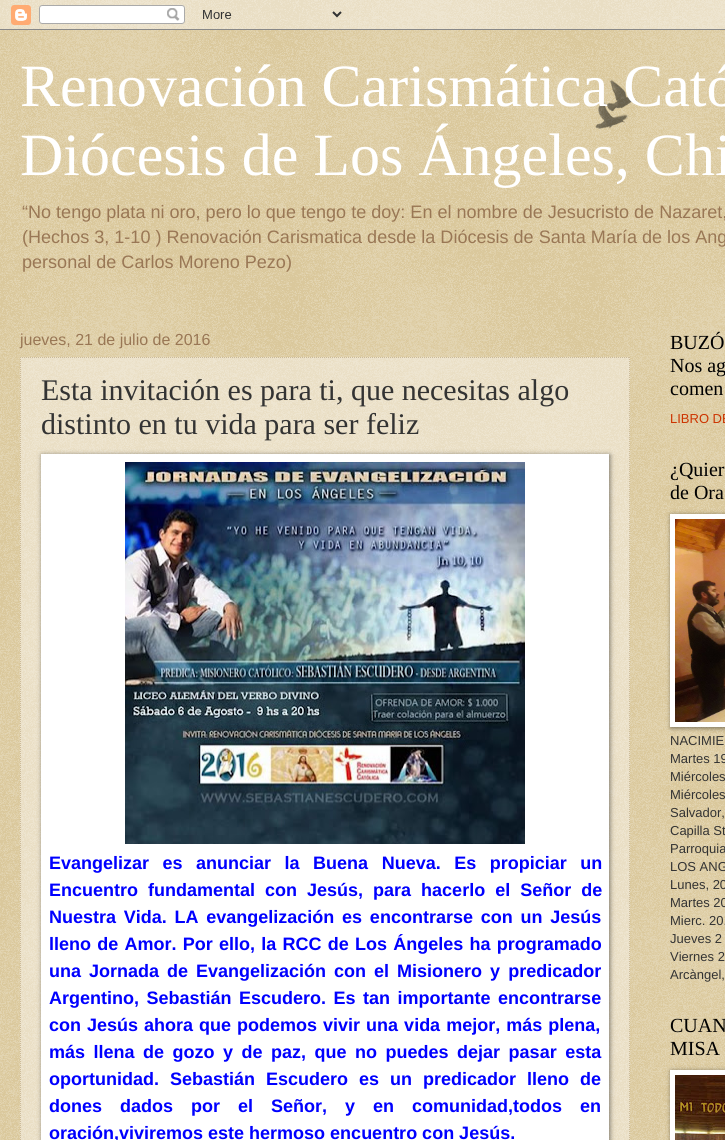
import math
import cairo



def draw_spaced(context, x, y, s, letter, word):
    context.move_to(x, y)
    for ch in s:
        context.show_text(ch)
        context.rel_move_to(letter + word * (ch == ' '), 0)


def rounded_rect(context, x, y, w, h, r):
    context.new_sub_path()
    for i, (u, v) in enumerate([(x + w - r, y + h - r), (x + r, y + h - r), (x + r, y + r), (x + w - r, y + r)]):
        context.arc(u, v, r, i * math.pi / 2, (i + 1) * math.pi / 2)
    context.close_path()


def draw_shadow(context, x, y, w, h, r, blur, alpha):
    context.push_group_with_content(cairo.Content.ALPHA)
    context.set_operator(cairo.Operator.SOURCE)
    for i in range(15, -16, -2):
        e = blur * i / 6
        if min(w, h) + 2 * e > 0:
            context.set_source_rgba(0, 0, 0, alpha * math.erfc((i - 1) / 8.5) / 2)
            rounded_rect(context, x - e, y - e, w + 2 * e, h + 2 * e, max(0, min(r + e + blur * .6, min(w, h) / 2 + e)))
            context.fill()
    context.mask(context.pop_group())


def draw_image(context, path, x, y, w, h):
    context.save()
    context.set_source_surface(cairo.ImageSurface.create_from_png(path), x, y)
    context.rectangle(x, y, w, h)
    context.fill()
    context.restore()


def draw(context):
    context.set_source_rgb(192 / 255, 161 / 255, 84 / 255)
    context.paint()
    draw_image(context, "images/1.png", 0, 0, 725, 1140)
    draw_image(context, "images/2.png", 0, 0, 725, 30)
    context.set_source_rgba(1, 1, 1, 0.4)
    context.rectangle(20, 357, 610, 783)
    context.fill()
    context.new_path()
    context.move_to(20, 357.5)
    context.line_to(630, 357.5)
    context.set_source_rgb(204 / 255, 187 / 255, 153 / 255)
    context.set_line_width(1)
    context.set_dash([1, 1])
    context.stroke()
    context.new_path()
    context.move_to(629.5, 357)
    context.line_to(629.5, 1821)
    context.stroke()
    context.new_path()
    context.move_to(20.5, 357)
    context.line_to(20.5, 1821)
    context.stroke()
    context.set_source_rgb(0, 0, 0)
    draw_shadow(context, 42, 455, 568, 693, 0, 2.5, 0.5)
    context.set_source_rgb(1, 1, 1)
    context.rectangle(41, 454, 568, 686)
    context.fill()
    draw_image(context, "images/3.png", 125, 462, 400, 382)
    context.set_source_rgb(0, 0, 0)
    draw_shadow(context, 671, 515, 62, 213, 0, 2.5, 0.5)
    context.set_source_rgb(1, 1, 1)
    context.rectangle(670, 514, 55, 213)
    context.fill()
    draw_image(context, "images/4.png", 675, 519, 50, 203)
    context.set_source_rgb(0, 0, 0)
    draw_shadow(context, 671, 1071, 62, 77, 0, 2.5, 0.5)
    context.set_source_rgb(1, 1, 1)
    context.rectangle(670, 1070, 55, 70)
    context.fill()
    draw_image(context, "images/5.png", 675, 1075, 50, 65)
    draw_image(context, "images/6.png", 595, 79, 42, 50)
    context.select_font_face("Liberation Serif")
    context.set_font_size(60)
    context.move_to(20, 106)
    context.show_text("Renovación Carismática Cató")
    context.move_to(20, 175)
    context.show_text("Diócesis de Los Ángeles, Chi")
    context.select_font_face("Liberation Sans")
    context.set_font_size(18.05)
    context.set_source_rgb(153 / 255, 119 / 255, 85 / 255)
    context.move_to(22, 218)
    context.show_text("“No tengo plata ni oro, pero lo que tengo te doy: En el nombre de Jesucristo de Nazaret,")
    context.move_to(22, 243)
    context.show_text("(Hechos 3, 1-10 ) Renovación Carismatica desde la Diócesis de Santa María de los Ang")
    context.move_to(22, 268)
    context.show_text("personal de Carlos Moreno Pezo)")
    context.set_font_size(16)
    context.move_to(20, 345)
    context.show_text("jueves, 21 de julio de 2016")
    context.select_font_face("Liberation Serif")
    context.set_font_size(30)
    context.set_source_rgb(51 / 255, 51 / 255, 51 / 255)
    context.move_to(41, 400)
    context.show_text("Esta invitación es para ti, que necesitas algo")
    context.move_to(41, 434)
    context.show_text("distinto en tu vida para ser feliz")
    context.select_font_face("Liberation Sans", cairo.FontSlant.NORMAL, cairo.FontWeight.BOLD)
    context.set_font_size(18)
    context.set_source_rgb(0, 0, 1)
    draw_spaced(context, 49, 869, "Evangelizar es anunciar la Buena Nueva. Es propiciar un", 0, 8.5)
    draw_spaced(context, 49, 896, "Encuentro fundamental con Jesús, para hacerlo el Señor de", 0, 5)
    draw_spaced(context, 49, 923, "Nuestra Vida. LA evangelización es encontrarse con un Jesús", 0, 2.75)
    draw_spaced(context, 49, 950, "lleno de Amor. Por ello, la RCC de Los Ángeles ha programado", 0, 1.25)
    draw_spaced(context, 49, 977, "una Jornada de Evangelización con el Misionero y predicador", 0, 3)
    draw_spaced(context, 49, 1004, "Argentino, Sebastián Escudero. Es tan importante encontrarse", 0, 2.5)
    draw_spaced(context, 49, 1031, "con Jesús ahora que podemos vivir una vida mejor, más plena,", 0, 1)
    draw_spaced(context, 49, 1058, "más llena de gozo y de paz, que no puedes dejar pasar esta", 0, 3.5)
    draw_spaced(context, 49, 1085, "oportunidad. Sebastián Escudero es un predicador lleno de", 0, 6)
    draw_spaced(context, 49, 1112, "dones dados por el Señor, y en comunidad,todos en", 0, 13)
    context.move_to(49, 1139)
    context.show_text("oración,viviremos este hermoso encuentro con Jesús.")
    context.select_font_face("Liberation Serif")
    context.set_font_size(20)
    context.set_source_rgb(0, 0, 0)
    context.move_to(670, 349)
    context.show_text("BUZÓ")
    context.move_to(670, 372)
    context.show_text("Nos ag")
    context.move_to(670, 395)
    context.show_text("comen")
    context.select_font_face("Liberation Sans")
    context.set_font_size(13)
    context.set_source_rgb(204 / 255, 51 / 255, 0)
    context.move_to(670, 423)
    context.show_text("LIBRO DE")
    context.select_font_face("Liberation Serif")
    context.set_font_size(20)
    context.set_source_rgb(0, 0, 0)
    context.move_to(670, 476)
    context.show_text("¿Quier")
    context.move_to(670, 499)
    context.show_text("de Ora")
    context.select_font_face("Liberation Sans")
    context.set_font_size(13)
    context.set_source_rgb(51 / 255, 51 / 255, 51 / 255)
    context.move_to(670, 745)
    context.show_text("NACIMIE")
    context.move_to(670, 763)
    context.show_text("Martes 19")
    context.move_to(670, 781)
    context.show_text("Miércoles")
    context.move_to(670, 799)
    context.show_text("Miércoles")
    context.move_to(670, 817)
    context.show_text("Salvador,")
    context.move_to(670, 835)
    context.show_text("Capilla St")
    context.move_to(670, 853)
    context.show_text("Parroquia")
    context.move_to(670, 871)
    context.show_text("LOS ANG")
    context.move_to(670, 889)
    context.show_text("Lunes, 20")
    context.move_to(670, 907)
    context.show_text("Martes 20")
    context.move_to(670, 925)
    context.show_text("Mierc. 20.")
    context.move_to(670, 943)
    context.show_text("Jueves 2")
    context.move_to(670, 961)
    context.show_text("Viernes 2")
    context.move_to(670, 979)
    context.show_text("Arcàngel,")
    context.select_font_face("Liberation Serif")
    context.set_font_size(20)
    context.set_source_rgb(0, 0, 0)
    context.move_to(670, 1032)
    context.show_text("CUAN")
    context.move_to(670, 1055)
    context.show_text("MISA")


surface = cairo.ImageSurface(cairo.Format.RGB24, 725, 1140)
context = cairo.Context(surface)
options = cairo.FontOptions()
options.set_hint_metrics(cairo.HintMetrics.OFF)
options.set_hint_style(cairo.HintStyle.NONE)
context.set_font_options(options)
context.set_miter_limit(4)
draw(context)
surface.write_to_png("out.png")
